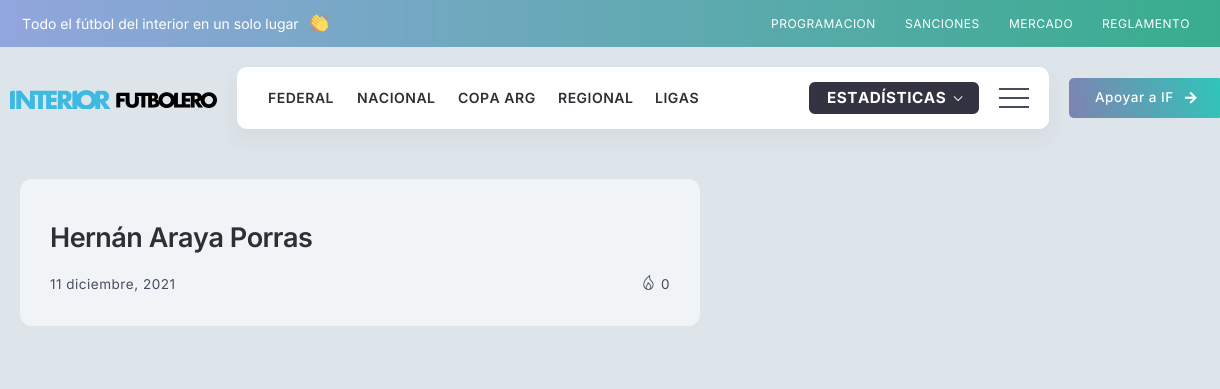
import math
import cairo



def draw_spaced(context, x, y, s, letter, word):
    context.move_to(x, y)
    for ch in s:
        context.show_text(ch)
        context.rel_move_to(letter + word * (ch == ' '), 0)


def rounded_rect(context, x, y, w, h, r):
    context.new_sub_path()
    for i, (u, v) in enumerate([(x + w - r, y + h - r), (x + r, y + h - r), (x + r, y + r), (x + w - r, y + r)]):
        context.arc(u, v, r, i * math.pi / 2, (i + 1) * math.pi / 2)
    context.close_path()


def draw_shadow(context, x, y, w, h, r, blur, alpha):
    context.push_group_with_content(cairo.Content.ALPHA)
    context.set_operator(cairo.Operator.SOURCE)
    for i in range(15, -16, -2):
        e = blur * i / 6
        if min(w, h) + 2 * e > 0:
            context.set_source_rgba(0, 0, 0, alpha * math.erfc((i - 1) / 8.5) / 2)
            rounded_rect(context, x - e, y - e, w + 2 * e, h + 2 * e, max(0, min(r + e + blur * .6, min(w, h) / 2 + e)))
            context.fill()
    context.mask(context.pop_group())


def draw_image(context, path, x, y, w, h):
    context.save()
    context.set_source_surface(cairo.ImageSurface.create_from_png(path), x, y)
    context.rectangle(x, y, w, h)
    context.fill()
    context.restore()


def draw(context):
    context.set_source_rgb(222 / 255, 229 / 255, 234 / 255)
    context.paint()
    gradient = cairo.LinearGradient(0, 24, 1220, 23)
    gradient.add_color_stop_rgba(0, 145 / 255, 166 / 255, 221 / 255, 1)
    gradient.add_color_stop_rgba(1, 56 / 255, 173 / 255, 141 / 255, 1)
    context.set_source(gradient)
    context.rectangle(0, 0, 1220, 47)
    context.fill()
    draw_image(context, "images/1.png", 310, 14, 18, 18)
    draw_image(context, "images/2.png", 10, 90, 207, 19)
    gradient = cairo.LinearGradient(1069, 119, 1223, 77)
    gradient.add_color_stop_rgba(0, 128 / 255, 130 / 255, 177 / 255, 1)
    gradient.add_color_stop_rgba(1, 45 / 255, 199 / 255, 185 / 255, 1)
    context.set_source(gradient)
    rounded_rect(context, 1069, 78, 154, 40, 5)
    context.fill()
    context.set_source_rgb(14 / 255, 14 / 255, 19 / 255)
    draw_shadow(context, 237, 77, 812, 62, 10, 10, 0.05)
    context.set_source_rgb(1, 1, 1)
    rounded_rect(context, 237, 67, 812, 62, 10)
    context.fill()
    context.set_source_rgb(52 / 255, 51 / 255, 65 / 255)
    rounded_rect(context, 809, 82, 170, 32, 6)
    context.fill()
    draw_image(context, "images/3.png", 953, 96, 10, 6)
    context.set_source_rgb(71 / 255, 76 / 255, 93 / 255)
    context.rectangle(999, 88, 30, 2)
    context.fill()
    context.rectangle(999, 97, 30, 2)
    context.fill()
    context.rectangle(999, 106, 30, 2)
    context.fill()
    draw_image(context, "images/4.png", 1184, 92, 13, 12)
    context.set_source_rgb(241 / 255, 244 / 255, 246 / 255)
    rounded_rect(context, 20, 179, 680, 147, 12)
    context.fill()
    draw_image(context, "images/5.png", 643, 275, 11, 15)
    context.select_font_face("Inter")
    context.set_font_size(14)
    context.set_source_rgb(1, 1, 1)
    context.move_to(22, 29)
    context.show_text("Todo el fútbol del interior en un solo lugar")
    context.set_font_size(12)
    draw_spaced(context, 771, 28, "PROGRAMACION", 0.5, 0)
    draw_spaced(context, 905, 28, "SANCIONES", 0.5, 0)
    draw_spaced(context, 1009, 28, "MERCADO", 0.5, 0)
    draw_spaced(context, 1102, 28, "REGLAMENTO", 0.5, 0)
    context.select_font_face("Inter SemiBold")
    context.set_font_size(14)
    context.set_source_rgb(47 / 255, 46 / 255, 53 / 255)
    draw_spaced(context, 268, 103, "FEDERAL", 0.5, 0)
    draw_spaced(context, 357, 103, "NACIONAL", 0.5, 0)
    draw_spaced(context, 458, 103, "COPA ARG", 0.5, 0)
    draw_spaced(context, 558, 103, "REGIONAL", 0.5, 0)
    draw_spaced(context, 655, 103, "LIGAS", 0.5, 0)
    context.select_font_face("Inter", cairo.FontSlant.NORMAL, cairo.FontWeight.BOLD)
    context.set_font_size(15.25)
    context.set_source_rgb(1, 1, 1)
    draw_spaced(context, 827, 103, "ESTADÍSTICAS", 0.5, 0)
    context.select_font_face("Inter Medium")
    context.set_font_size(13.5)
    draw_spaced(context, 1095, 102, "Apoyar a IF", 0.5, 0)
    context.select_font_face("Inter SemiBold")
    context.set_font_size(27)
    context.set_source_rgb(47 / 255, 46 / 255, 53 / 255)
    draw_spaced(context, 50, 247, "Hernán Araya Porras", -0.5, 0)
    context.select_font_face("Inter")
    context.set_font_size(13.5)
    context.set_source_rgb(71 / 255, 76 / 255, 93 / 255)
    draw_spaced(context, 50, 289, "11 diciembre, 2021", 0.5, 0)
    draw_spaced(context, 661, 289, "0", 0.5, 0)


surface = cairo.ImageSurface(cairo.Format.RGB24, 1220, 389)
context = cairo.Context(surface)
options = cairo.FontOptions()
options.set_hint_metrics(cairo.HintMetrics.OFF)
options.set_hint_style(cairo.HintStyle.NONE)
context.set_font_options(options)
context.set_miter_limit(4)
draw(context)
surface.write_to_png("out.png")
